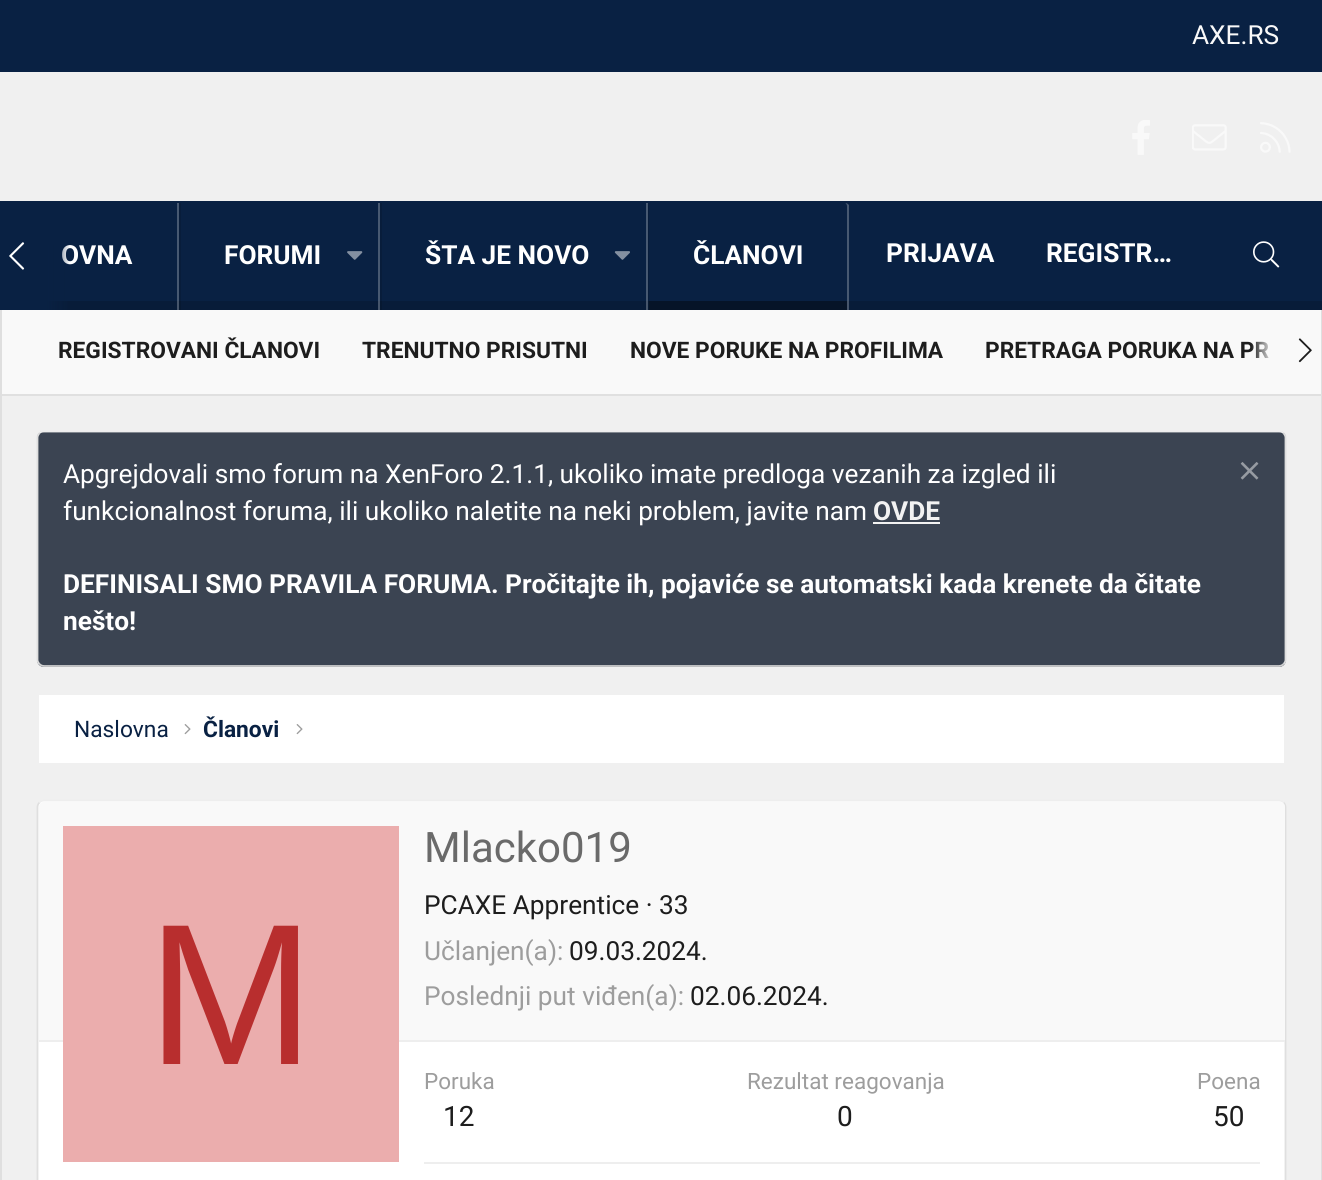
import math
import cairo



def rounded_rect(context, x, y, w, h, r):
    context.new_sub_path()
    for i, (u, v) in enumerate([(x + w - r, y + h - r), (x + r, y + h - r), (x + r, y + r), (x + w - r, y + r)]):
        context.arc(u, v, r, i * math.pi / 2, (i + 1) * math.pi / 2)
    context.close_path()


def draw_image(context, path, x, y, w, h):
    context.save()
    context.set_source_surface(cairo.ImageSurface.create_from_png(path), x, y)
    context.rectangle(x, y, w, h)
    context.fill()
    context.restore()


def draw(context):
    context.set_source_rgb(9 / 255, 33 / 255, 67 / 255)
    context.paint()
    context.set_source_rgb(240 / 255, 240 / 255, 240 / 255)
    context.rectangle(0, 72, 1322, 129)
    context.fill()
    draw_image(context, "images/1.png", 1132, 120, 18, 35)
    draw_image(context, "images/2.png", 1192, 124, 35, 27)
    draw_image(context, "images/3.png", 1260, 122, 31, 31)
    context.set_source_rgb(8 / 255, 28 / 255, 57 / 255)
    context.rectangle(46, 301, 1276, 9)
    context.fill()
    draw_image(context, "images/4.png", 9, 242, 16, 28)
    context.set_source_rgba(1, 1, 1, 0.25)
    context.rectangle(177, 203, 2, 107)
    context.fill()
    context.rectangle(378, 203, 2, 107)
    context.fill()
    context.set_source_rgba(0, 0, 0, 0.12)
    context.rectangle(179, 203, 2, 107)
    context.fill()
    draw_image(context, "images/5.png", 347, 251, 16, 9)
    context.set_source_rgba(1, 1, 1, 0.25)
    context.rectangle(646, 203, 2, 107)
    context.fill()
    context.set_source_rgba(0, 0, 0, 0.12)
    context.rectangle(380, 203, 2, 107)
    context.fill()
    draw_image(context, "images/6.png", 614, 251, 16, 9)
    context.set_source_rgba(1, 1, 1, 0.25)
    context.new_path()
    context.move_to(849, 205)
    context.curve_to(848, 204, 847, 203, 845, 203)
    context.curve_to(846, 203, 847, 205, 847, 206)
    context.line_to(847, 310)
    context.line_to(849, 310)
    context.close_path()
    context.fill()
    context.set_source_rgba(0, 0, 0, 0.12)
    context.new_path()
    context.move_to(651, 203)
    context.curve_to(650, 203, 649, 205, 649, 206)
    context.line_to(649, 310)
    context.line_to(648, 310)
    context.line_to(648, 206)
    context.curve_to(648, 205, 649, 203, 651, 203)
    context.close_path()
    context.fill()
    context.set_source_rgb(6 / 255, 20 / 255, 40 / 255)
    context.rectangle(649, 301, 198, 9)
    context.fill()
    draw_image(context, "images/7.png", 1253, 241, 27, 27)
    context.set_source_rgb(249 / 255, 249 / 255, 249 / 255)
    context.rectangle(2, 310, 1319, 84)
    context.fill()
    context.set_source_rgb(223 / 255, 223 / 255, 223 / 255)
    context.rectangle(1321, 310, 1, 870)
    context.fill()
    context.set_source_rgb(224 / 255, 224 / 255, 224 / 255)
    context.rectangle(0, 394, 1322, 2)
    context.fill()
    context.set_source_rgb(223 / 255, 223 / 255, 223 / 255)
    context.rectangle(0, 310, 2, 870)
    context.fill()
    draw_image(context, "images/8.png", 1298, 338, 14, 25)
    context.set_source_rgb(240 / 255, 240 / 255, 240 / 255)
    context.rectangle(2, 396, 1319, 784)
    context.fill()
    context.set_source_rgb(59 / 255, 68 / 255, 82 / 255)
    rounded_rect(context, 37, 431, 1249, 236, 7)
    context.fill()
    context.new_path()
    context.move_to(39.5, 433)
    context.curve_to(40.5, 432, 42, 431.5, 44, 431.5)
    context.line_to(1279, 431.5)
    context.curve_to(1281, 431.5, 1282.5, 432, 1283.5, 433)
    context.set_source_rgb(238 / 255, 238 / 255, 238 / 255)
    context.set_line_width(1.8)
    context.stroke()
    context.new_path()
    context.move_to(1283.5, 433)
    context.curve_to(1284.5, 434.5, 1285.5, 436, 1285.5, 437.5)
    context.line_to(1285.5, 660)
    context.curve_to(1285.5, 661.5, 1284.5, 663, 1283.5, 664)
    context.set_source_rgb(223 / 255, 223 / 255, 223 / 255)
    context.stroke()
    context.new_path()
    context.move_to(1283.5, 664)
    context.curve_to(1282.5, 665, 1281, 666, 1279, 666)
    context.line_to(44, 666)
    context.curve_to(42, 666, 40.5, 665, 39.5, 664)
    context.set_source_rgb(210 / 255, 210 / 255, 210 / 255)
    context.stroke()
    context.new_path()
    context.move_to(39.5, 664)
    context.curve_to(38.5, 663, 37.5, 661.5, 37.5, 660)
    context.line_to(37.5, 437.5)
    context.curve_to(37.5, 436, 38.5, 434.5, 39.5, 433)
    context.set_source_rgb(223 / 255, 223 / 255, 223 / 255)
    context.stroke()
    draw_image(context, "images/9.png", 1240, 462, 19, 18)
    context.set_source_rgb(242 / 255, 242 / 255, 242 / 255)
    context.rectangle(873, 522, 67, 2)
    context.fill()
    context.set_source_rgb(1, 1, 1)
    context.rectangle(39, 695, 1245, 68)
    context.fill()
    draw_image(context, "images/10.png", 184, 724, 7, 11)
    draw_image(context, "images/10.png", 296, 724, 7, 11)
    rounded_rect(context, 37, 800, 1249, 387, 7)
    context.fill()
    context.new_path()
    context.move_to(39.5, 802.5)
    context.curve_to(40.5, 801.5, 42, 800.5, 44, 800.5)
    context.line_to(1279, 800.5)
    context.curve_to(1281, 800.5, 1282.5, 801.5, 1283.5, 802.5)
    context.set_source_rgb(238 / 255, 238 / 255, 238 / 255)
    context.stroke()
    context.new_path()
    context.move_to(1283.5, 802.5)
    context.curve_to(1284.5, 803.5, 1285.5, 805, 1285.5, 807)
    context.line_to(1285.5, 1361.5)
    context.curve_to(1285.5, 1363, 1284.5, 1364.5, 1283.5, 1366)
    context.set_source_rgb(223 / 255, 223 / 255, 223 / 255)
    context.stroke()
    context.new_path()
    context.move_to(39.5, 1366)
    context.curve_to(38.5, 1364.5, 37.5, 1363, 37.5, 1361.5)
    context.line_to(37.5, 807)
    context.curve_to(37.5, 805, 38.5, 803.5, 39.5, 802.5)
    context.stroke()
    context.set_source_rgb(249 / 255, 249 / 255, 249 / 255)
    context.new_path()
    context.move_to(44, 802)
    context.line_to(1280, 802)
    context.curve_to(1283, 802, 1285, 804, 1285, 807)
    context.line_to(1285, 1041)
    context.line_to(39, 1041)
    context.line_to(39, 807)
    context.curve_to(39, 804, 41, 802, 44, 802)
    context.close_path()
    context.fill()
    context.set_source_rgb(238 / 255, 238 / 255, 238 / 255)
    context.rectangle(39, 1040, 1246, 2)
    context.fill()
    context.set_source_rgb(235 / 255, 173 / 255, 173 / 255)
    context.rectangle(63, 826, 336, 336)
    context.fill()
    context.set_source_rgb(238 / 255, 238 / 255, 238 / 255)
    context.rectangle(424, 1162, 836, 2)
    context.fill()
    context.select_font_face("Roboto")
    context.set_font_size(26.25)
    context.set_source_rgb(249 / 255, 249 / 255, 249 / 255)
    context.move_to(1192, 44)
    context.show_text("AXE.RS")
    context.select_font_face("Roboto", cairo.FontSlant.NORMAL, cairo.FontWeight.BOLD)
    context.set_source_rgb(1, 1, 1)
    context.move_to(61, 264)
    context.show_text("OVNA")
    gradient = cairo.LinearGradient(0, 256, 70, 256)
    gradient.add_color_stop_rgba(0.66, 9 / 255, 33 / 255, 67 / 255, 1)
    gradient.add_color_stop_rgba(1, 9 / 255, 33 / 255, 67 / 255, 0)
    context.set_source(gradient)
    context.rectangle(46, 245, 23, 65)
    context.fill()
    context.set_source_rgb(1, 1, 1)
    context.move_to(224, 264)
    context.show_text("FORUMI")
    context.move_to(425, 264)
    context.show_text("ŠTA JE NOVO")
    context.move_to(693, 264)
    context.show_text("ČLANOVI")
    context.move_to(886, 262)
    context.show_text("PRIJAVA")
    context.move_to(1046, 262)
    context.show_text("REGISTR…")
    context.set_font_size(22.75)
    context.set_source_rgb(29 / 255, 29 / 255, 29 / 255)
    context.move_to(58, 358)
    context.show_text("REGISTROVANI ČLANOVI")
    context.move_to(362, 358)
    context.show_text("TRENUTNO PRISUTNI")
    context.move_to(630, 358)
    context.show_text("NOVE PORUKE NA PROFILIMA")
    context.move_to(985, 358)
    context.show_text("PRETRAGA PORUKA NA PR")
    gradient = cairo.LinearGradient(1251, 352, 1321, 352)
    gradient.add_color_stop_rgba(0, 249 / 255, 249 / 255, 249 / 255, 0)
    gradient.add_color_stop_rgba(0.33, 249 / 255, 249 / 255, 249 / 255, 1)
    context.set_source(gradient)
    context.rectangle(1251, 341, 18, 17)
    context.fill()
    context.select_font_face("Roboto")
    context.set_font_size(26.25)
    context.set_source_rgb(1, 1, 1)
    context.move_to(63, 483)
    context.show_text("Apgrejdovali smo forum na XenForo 2.1.1, ukoliko imate predloga vezanih za izgled ili")
    context.move_to(63, 520)
    context.show_text("funkcionalnost foruma, ili ukoliko naletite na neki problem, javite nam")
    context.select_font_face("Roboto", cairo.FontSlant.NORMAL, cairo.FontWeight.BOLD)
    context.set_source_rgb(242 / 255, 242 / 255, 242 / 255)
    context.move_to(873, 520)
    context.show_text("OVDE")
    context.set_source_rgb(1, 1, 1)
    context.move_to(63, 593)
    context.show_text("DEFINISALI SMO PRAVILA FORUMA. Pročitajte ih, pojaviće se automatski kada krenete da čitate")
    context.move_to(63, 630)
    context.show_text("nešto!")
    context.select_font_face("Roboto")
    context.set_font_size(22.75)
    context.set_source_rgb(9 / 255, 33 / 255, 67 / 255)
    context.move_to(74, 737)
    context.show_text("Naslovna")
    context.select_font_face("Roboto", cairo.FontSlant.NORMAL, cairo.FontWeight.BOLD)
    context.move_to(203, 737)
    context.show_text("Članovi")
    context.select_font_face("Liberation Sans")
    context.set_font_size(201)
    context.set_source_rgb(184 / 255, 46 / 255, 46 / 255)
    context.move_to(147, 1064)
    context.show_text("M")
    context.select_font_face("Roboto")
    context.set_font_size(42)
    context.set_source_rgb(106 / 255, 106 / 255, 106 / 255)
    context.move_to(424, 862)
    context.show_text("Mlacko019")
    context.set_font_size(26.25)
    context.set_source_rgb(29 / 255, 29 / 255, 29 / 255)
    context.move_to(424, 914)
    context.show_text("PCAXE Apprentice · 33")
    context.set_source_rgb(157 / 255, 157 / 255, 157 / 255)
    context.move_to(424, 960)
    context.show_text("Učlanjen(a):")
    context.set_source_rgb(29 / 255, 29 / 255, 29 / 255)
    context.move_to(569, 960)
    context.show_text("09.03.2024.")
    context.set_source_rgb(157 / 255, 157 / 255, 157 / 255)
    context.move_to(424, 1005)
    context.show_text("Poslednji put viđen(a):")
    context.set_source_rgb(29 / 255, 29 / 255, 29 / 255)
    context.move_to(690, 1005)
    context.show_text("02.06.2024.")
    context.set_font_size(22.5)
    context.set_source_rgb(157 / 255, 157 / 255, 157 / 255)
    context.move_to(424, 1089)
    context.show_text("Poruka")
    context.set_font_size(28)
    context.set_source_rgb(29 / 255, 29 / 255, 29 / 255)
    context.move_to(443, 1126)
    context.show_text("12")
    context.set_font_size(22.5)
    context.set_source_rgb(157 / 255, 157 / 255, 157 / 255)
    context.move_to(747, 1089)
    context.show_text("Rezultat reagovanja")
    context.set_font_size(28)
    context.set_source_rgb(29 / 255, 29 / 255, 29 / 255)
    context.move_to(837, 1126)
    context.show_text("0")
    context.set_font_size(22.5)
    context.set_source_rgb(157 / 255, 157 / 255, 157 / 255)
    context.move_to(1197, 1089)
    context.show_text("Poena")
    context.set_font_size(28)
    context.set_source_rgb(29 / 255, 29 / 255, 29 / 255)
    context.move_to(1213, 1126)
    context.show_text("50")


surface = cairo.ImageSurface(cairo.Format.RGB24, 1322, 1180)
context = cairo.Context(surface)
options = cairo.FontOptions()
options.set_hint_metrics(cairo.HintMetrics.OFF)
options.set_hint_style(cairo.HintStyle.NONE)
context.set_font_options(options)
context.set_miter_limit(4)
draw(context)
surface.write_to_png("out.png")
